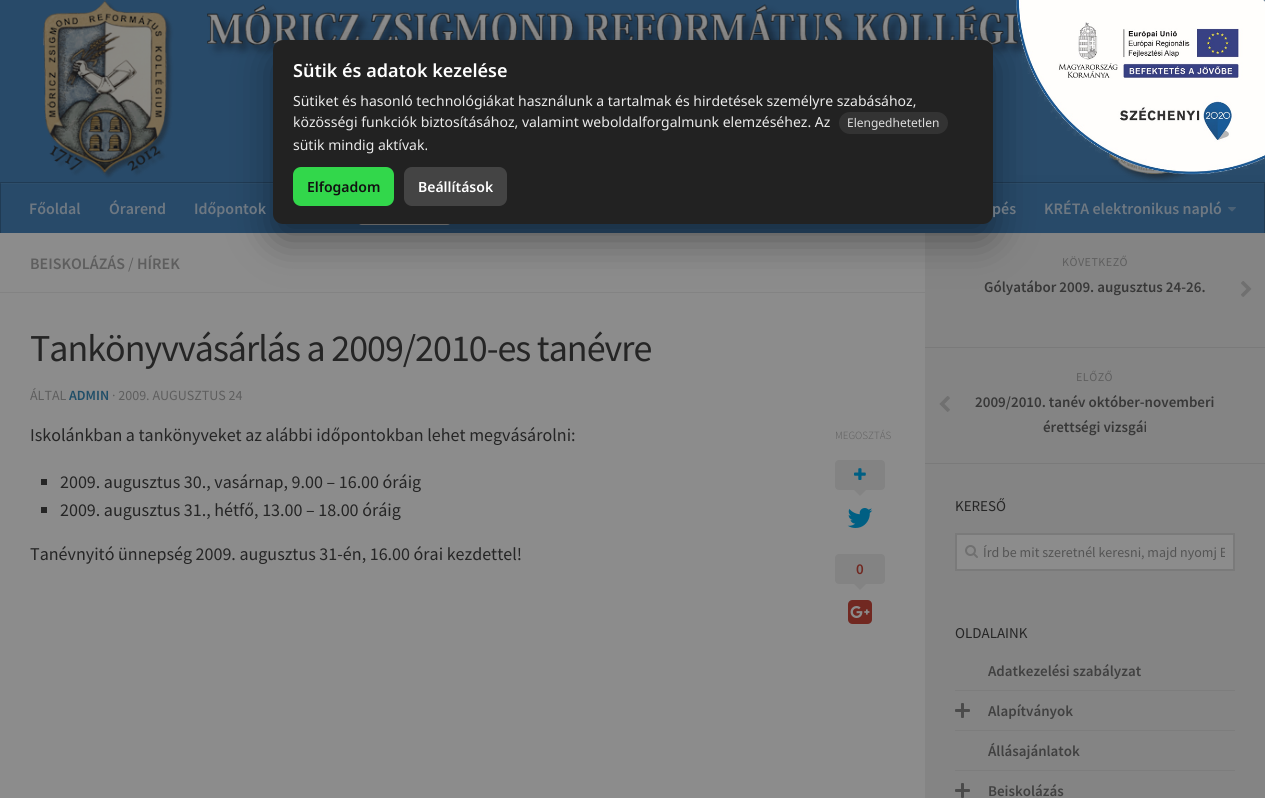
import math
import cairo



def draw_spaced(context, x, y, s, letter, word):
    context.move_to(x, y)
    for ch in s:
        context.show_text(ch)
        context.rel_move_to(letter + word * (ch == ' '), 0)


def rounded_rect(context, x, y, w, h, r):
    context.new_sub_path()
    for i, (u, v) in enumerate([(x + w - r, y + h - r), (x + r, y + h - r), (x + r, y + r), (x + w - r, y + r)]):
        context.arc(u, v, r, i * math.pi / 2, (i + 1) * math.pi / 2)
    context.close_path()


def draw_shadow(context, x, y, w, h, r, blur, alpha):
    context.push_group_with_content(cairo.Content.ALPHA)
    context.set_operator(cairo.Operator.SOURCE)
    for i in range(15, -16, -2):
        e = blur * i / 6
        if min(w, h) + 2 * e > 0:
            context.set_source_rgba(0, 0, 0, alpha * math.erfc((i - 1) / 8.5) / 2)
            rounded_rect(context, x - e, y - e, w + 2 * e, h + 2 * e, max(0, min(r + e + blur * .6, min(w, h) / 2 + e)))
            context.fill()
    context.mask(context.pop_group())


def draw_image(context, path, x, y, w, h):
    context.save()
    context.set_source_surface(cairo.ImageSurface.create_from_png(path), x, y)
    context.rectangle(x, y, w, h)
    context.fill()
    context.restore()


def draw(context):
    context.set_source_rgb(40 / 255, 74 / 255, 105 / 255)
    context.paint()
    context.set_source_rgb(45 / 255, 78 / 255, 107 / 255)
    context.rectangle(0, 183, 1265, 1)
    context.fill()
    draw_image(context, "images/2.png", 43, 0, 1148, 182)
    context.set_source_rgb(32 / 255, 59 / 255, 84 / 255)
    context.rectangle(0, 182, 1265, 1)
    context.fill()
    rounded_rect(context, 358, 192, 93, 32, 4)
    context.set_source_rgb(140 / 255, 140 / 255, 140 / 255)
    context.stroke()
    context.rectangle(0, 233, 925, 565)
    context.fill()
    context.set_source_rgb(132 / 255, 132 / 255, 132 / 255)
    context.rectangle(925, 234, 340, 564)
    context.fill()
    context.set_source_rgb(131 / 255, 131 / 255, 131 / 255)
    context.rectangle(0, 292, 925, 1)
    context.fill()
    context.rectangle(925, 233, 340, 1)
    context.fill()
    context.set_source_rgb(0, 0, 0)
    draw_shadow(context, 273, 55, 720, 184, 10, 20, 0.4)
    context.set_source_rgb(34 / 255, 34 / 255, 34 / 255)
    rounded_rect(context, 273, 40, 720, 184, 10)
    context.fill()
    context.set_source_rgb(51 / 255, 51 / 255, 51 / 255)
    rounded_rect(context, 839, 112, 109, 22, 11)
    context.fill()
    context.set_source_rgb(50 / 255, 215 / 255, 75 / 255)
    rounded_rect(context, 293, 167, 101, 39, 8)
    context.fill()
    context.set_source_rgb(68 / 255, 68 / 255, 68 / 255)
    rounded_rect(context, 404, 167, 103, 39, 8)
    context.fill()
    draw_image(context, "images/1.png", 1016, 0, 249, 175)
    context.set_source_rgb(32 / 255, 59 / 255, 84 / 255)
    context.rectangle(1264, 183, 1, 50)
    context.fill()
    context.set_source_rgb(37 / 255, 63 / 255, 87 / 255)
    context.rectangle(1264, 183, 1, 1)
    context.fill()
    context.set_source_rgb(32 / 255, 59 / 255, 84 / 255)
    context.rectangle(0, 183, 1, 50)
    context.fill()
    context.set_source_rgb(37 / 255, 63 / 255, 87 / 255)
    context.rectangle(0, 183, 1, 1)
    context.fill()
    draw_image(context, "images/3.png", 1228, 207, 8, 5)
    context.set_source_rgb(37 / 255, 37 / 255, 37 / 255)
    context.rectangle(41, 479, 6, 6)
    context.fill()
    context.rectangle(41, 507, 6, 6)
    context.fill()
    context.set_source_rgb(131 / 255, 131 / 255, 131 / 255)
    rounded_rect(context, 835, 460, 50, 30, 4)
    context.fill()
    draw_image(context, "images/4.png", 854, 468, 12, 12)
    context.new_path()
    context.move_to(854, 490)
    context.line_to(866, 490)
    context.line_to(860, 496)
    context.close_path()
    context.fill()
    draw_image(context, "images/5.png", 847, 508, 26, 20)
    rounded_rect(context, 835, 554, 50, 30, 4)
    context.fill()
    context.new_path()
    context.move_to(854, 584)
    context.line_to(866, 584)
    context.line_to(860, 590)
    context.close_path()
    context.fill()
    draw_image(context, "images/6.png", 848, 600, 24, 24)
    context.set_source_rgb(122 / 255, 122 / 255, 122 / 255)
    context.rectangle(925, 347, 340, 1)
    context.fill()
    draw_image(context, "images/7.png", 1241, 281, 11, 16)
    context.rectangle(925, 463, 340, 1)
    context.fill()
    draw_image(context, "images/8.png", 939, 396, 11, 16)
    context.set_source_rgb(140 / 255, 140 / 255, 140 / 255)
    context.rectangle(956, 534, 278, 36)
    context.fill_preserve()
    context.set_source_rgb(122 / 255, 122 / 255, 122 / 255)
    context.stroke()
    draw_image(context, "images/9.png", 965, 545, 13, 13)
    context.set_source_rgb(125 / 255, 125 / 255, 125 / 255)
    context.rectangle(955, 690, 280, 1)
    context.fill()
    context.rectangle(955, 730, 280, 1)
    context.fill()
    context.set_source_rgb(75 / 255, 75 / 255, 75 / 255)
    rounded_rect(context, 955, 709, 15, 3, 1)
    context.fill()
    rounded_rect(context, 961, 703, 3, 15, 1)
    context.fill()
    context.set_source_rgb(125 / 255, 125 / 255, 125 / 255)
    context.rectangle(955, 770, 280, 1)
    context.fill()
    context.set_source_rgb(75 / 255, 75 / 255, 75 / 255)
    rounded_rect(context, 955, 789, 15, 3, 1)
    context.fill()
    rounded_rect(context, 961, 783, 3, 15, 1)
    context.fill()
    context.select_font_face("Noto Sans SemiBold")
    context.set_font_size(18)
    context.set_source_rgb(1, 1, 1)
    context.move_to(293, 77)
    context.show_text("Sütik és adatok kezelése")
    context.select_font_face("Noto Sans")
    context.set_font_size(14)
    context.set_source_rgb(234 / 255, 234 / 255, 234 / 255)
    context.move_to(293, 106)
    context.show_text("Sütiket és hasonló technológiákat használunk a tartalmak és hirdetések személyre szabásához,")
    context.move_to(293, 127)
    context.show_text("közösségi funkciók biztosításához, valamint weboldalforgalmunk elemzéséhez. Az")
    context.set_font_size(12)
    context.set_source_rgb(221 / 255, 221 / 255, 221 / 255)
    context.move_to(847, 127)
    context.show_text("Elengedhetetlen")
    context.set_font_size(14)
    context.set_source_rgb(234 / 255, 234 / 255, 234 / 255)
    context.move_to(293, 150)
    context.show_text("sütik mindig aktívak.")
    context.select_font_face("Noto Sans SemiBold")
    context.set_source_rgb(17 / 255, 17 / 255, 17 / 255)
    context.move_to(307, 192)
    context.show_text("Elfogadom")
    context.set_source_rgb(1, 1, 1)
    context.move_to(418, 192)
    context.show_text("Beállítások")
    context.select_font_face("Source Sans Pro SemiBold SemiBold")
    context.set_font_size(16)
    context.set_source_rgb(110 / 255, 120 / 255, 130 / 255)
    context.move_to(29, 214)
    context.show_text("Főoldal")
    context.move_to(109, 214)
    context.show_text("Órarend")
    context.move_to(194, 214)
    context.show_text("Időpontok")
    context.move_to(992, 214)
    context.show_text("pés")
    context.move_to(1044, 214)
    context.show_text("KRÉTA elektronikus napló")
    context.set_source_rgb(94 / 255, 94 / 255, 94 / 255)
    context.move_to(30, 269)
    context.show_text("BEISKOLÁZÁS")
    context.select_font_face("Source Sans Pro")
    context.move_to(128, 269)
    context.show_text("/")
    context.select_font_face("Source Sans Pro SemiBold SemiBold")
    context.move_to(137, 269)
    context.show_text("HÍREK")
    context.select_font_face("Source Sans Pro")
    context.set_font_size(38)
    context.set_source_rgb(37 / 255, 37 / 255, 37 / 255)
    draw_spaced(context, 30, 361, "Tankönyvvásárlás a 2009/2010-es tanévre", -1, 0)
    context.set_font_size(14)
    context.set_source_rgb(94 / 255, 94 / 255, 94 / 255)
    context.move_to(30, 400)
    context.show_text("ÁLTAL")
    context.select_font_face("Source Sans Pro SemiBold SemiBold")
    context.set_source_rgb(32 / 255, 78 / 255, 104 / 255)
    context.move_to(69, 400)
    context.show_text("ADMIN")
    context.select_font_face("Source Sans Pro")
    context.set_source_rgb(94 / 255, 94 / 255, 94 / 255)
    context.move_to(112, 400)
    context.show_text("· 2009. AUGUSZTUS 24")
    context.set_font_size(18)
    context.set_source_rgb(37 / 255, 37 / 255, 37 / 255)
    context.move_to(30, 441)
    context.show_text("Iskolánkban a tankönyveket az alábbi időpontokban lehet megvásárolni:")
    context.move_to(60, 488)
    context.show_text("2009. augusztus 30., vasárnap, 9.00 – 16.00 óráig")
    context.move_to(60, 516)
    context.show_text("2009. augusztus 31., hétfő, 13.00 – 18.00 óráig")
    context.move_to(30, 560)
    context.show_text("Tanévnyitó ünnepség 2009. augusztus 31-én, 16.00 órai kezdettel!")
    context.select_font_face("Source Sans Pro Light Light")
    context.set_font_size(11)
    context.set_source_rgb(94 / 255, 94 / 255, 94 / 255)
    context.move_to(835, 439)
    context.show_text("MEGOSZTÁS")
    context.select_font_face("Source Sans Pro SemiBold SemiBold")
    context.set_font_size(15)
    context.set_source_rgb(113 / 255, 40 / 255, 33 / 255)
    context.move_to(856, 574)
    context.show_text("0")
    context.select_font_face("Source Sans Pro")
    context.set_font_size(12)
    context.set_source_rgb(94 / 255, 94 / 255, 94 / 255)
    draw_spaced(context, 1062, 266, "KÖVETKEZŐ", 0.5, 0)
    context.select_font_face("Source Sans Pro SemiBold SemiBold")
    context.set_font_size(15)
    context.set_source_rgb(56 / 255, 56 / 255, 56 / 255)
    context.move_to(984, 292)
    context.show_text("Gólyatábor 2009. augusztus 24-26.")
    context.select_font_face("Source Sans Pro")
    context.set_font_size(12)
    context.set_source_rgb(94 / 255, 94 / 255, 94 / 255)
    draw_spaced(context, 1076, 381, "ELŐZŐ", 0.5, 0)
    context.select_font_face("Source Sans Pro SemiBold SemiBold")
    context.set_font_size(15)
    context.set_source_rgb(56 / 255, 56 / 255, 56 / 255)
    context.move_to(975, 407)
    context.show_text("2009/2010. tanév október-novemberi")
    context.move_to(1043, 432)
    context.show_text("érettségi vizsgái")
    context.select_font_face("Source Sans Pro")
    context.set_source_rgb(37 / 255, 37 / 255, 37 / 255)
    context.move_to(955, 511)
    context.show_text("KERESŐ")
    context.save()
    context.rectangle(983, 542, 242, 20)
    context.clip()
    context.set_font_size(14)
    context.set_source_rgb(84 / 255, 84 / 255, 84 / 255)
    context.move_to(983, 557)
    context.show_text("Írd be mit szeretnél keresni, majd nyomj E")
    context.restore()
    context.move_to(955, 638)
    context.show_text("OLDALAINK")
    context.select_font_face("Source Sans Pro SemiBold SemiBold")
    context.set_source_rgb(65 / 255, 65 / 255, 65 / 255)
    context.move_to(988, 676)
    context.show_text("Adatkezelési szabályzat")
    context.move_to(988, 716)
    context.show_text("Alapítványok")
    context.move_to(988, 756)
    context.show_text("Állásajánlatok")
    context.move_to(988, 796)
    context.show_text("Beiskolázás")


surface = cairo.ImageSurface(cairo.Format.RGB24, 1265, 798)
context = cairo.Context(surface)
options = cairo.FontOptions()
options.set_hint_metrics(cairo.HintMetrics.OFF)
options.set_hint_style(cairo.HintStyle.NONE)
context.set_font_options(options)
context.set_miter_limit(4)
draw(context)
surface.write_to_png("out.png")
